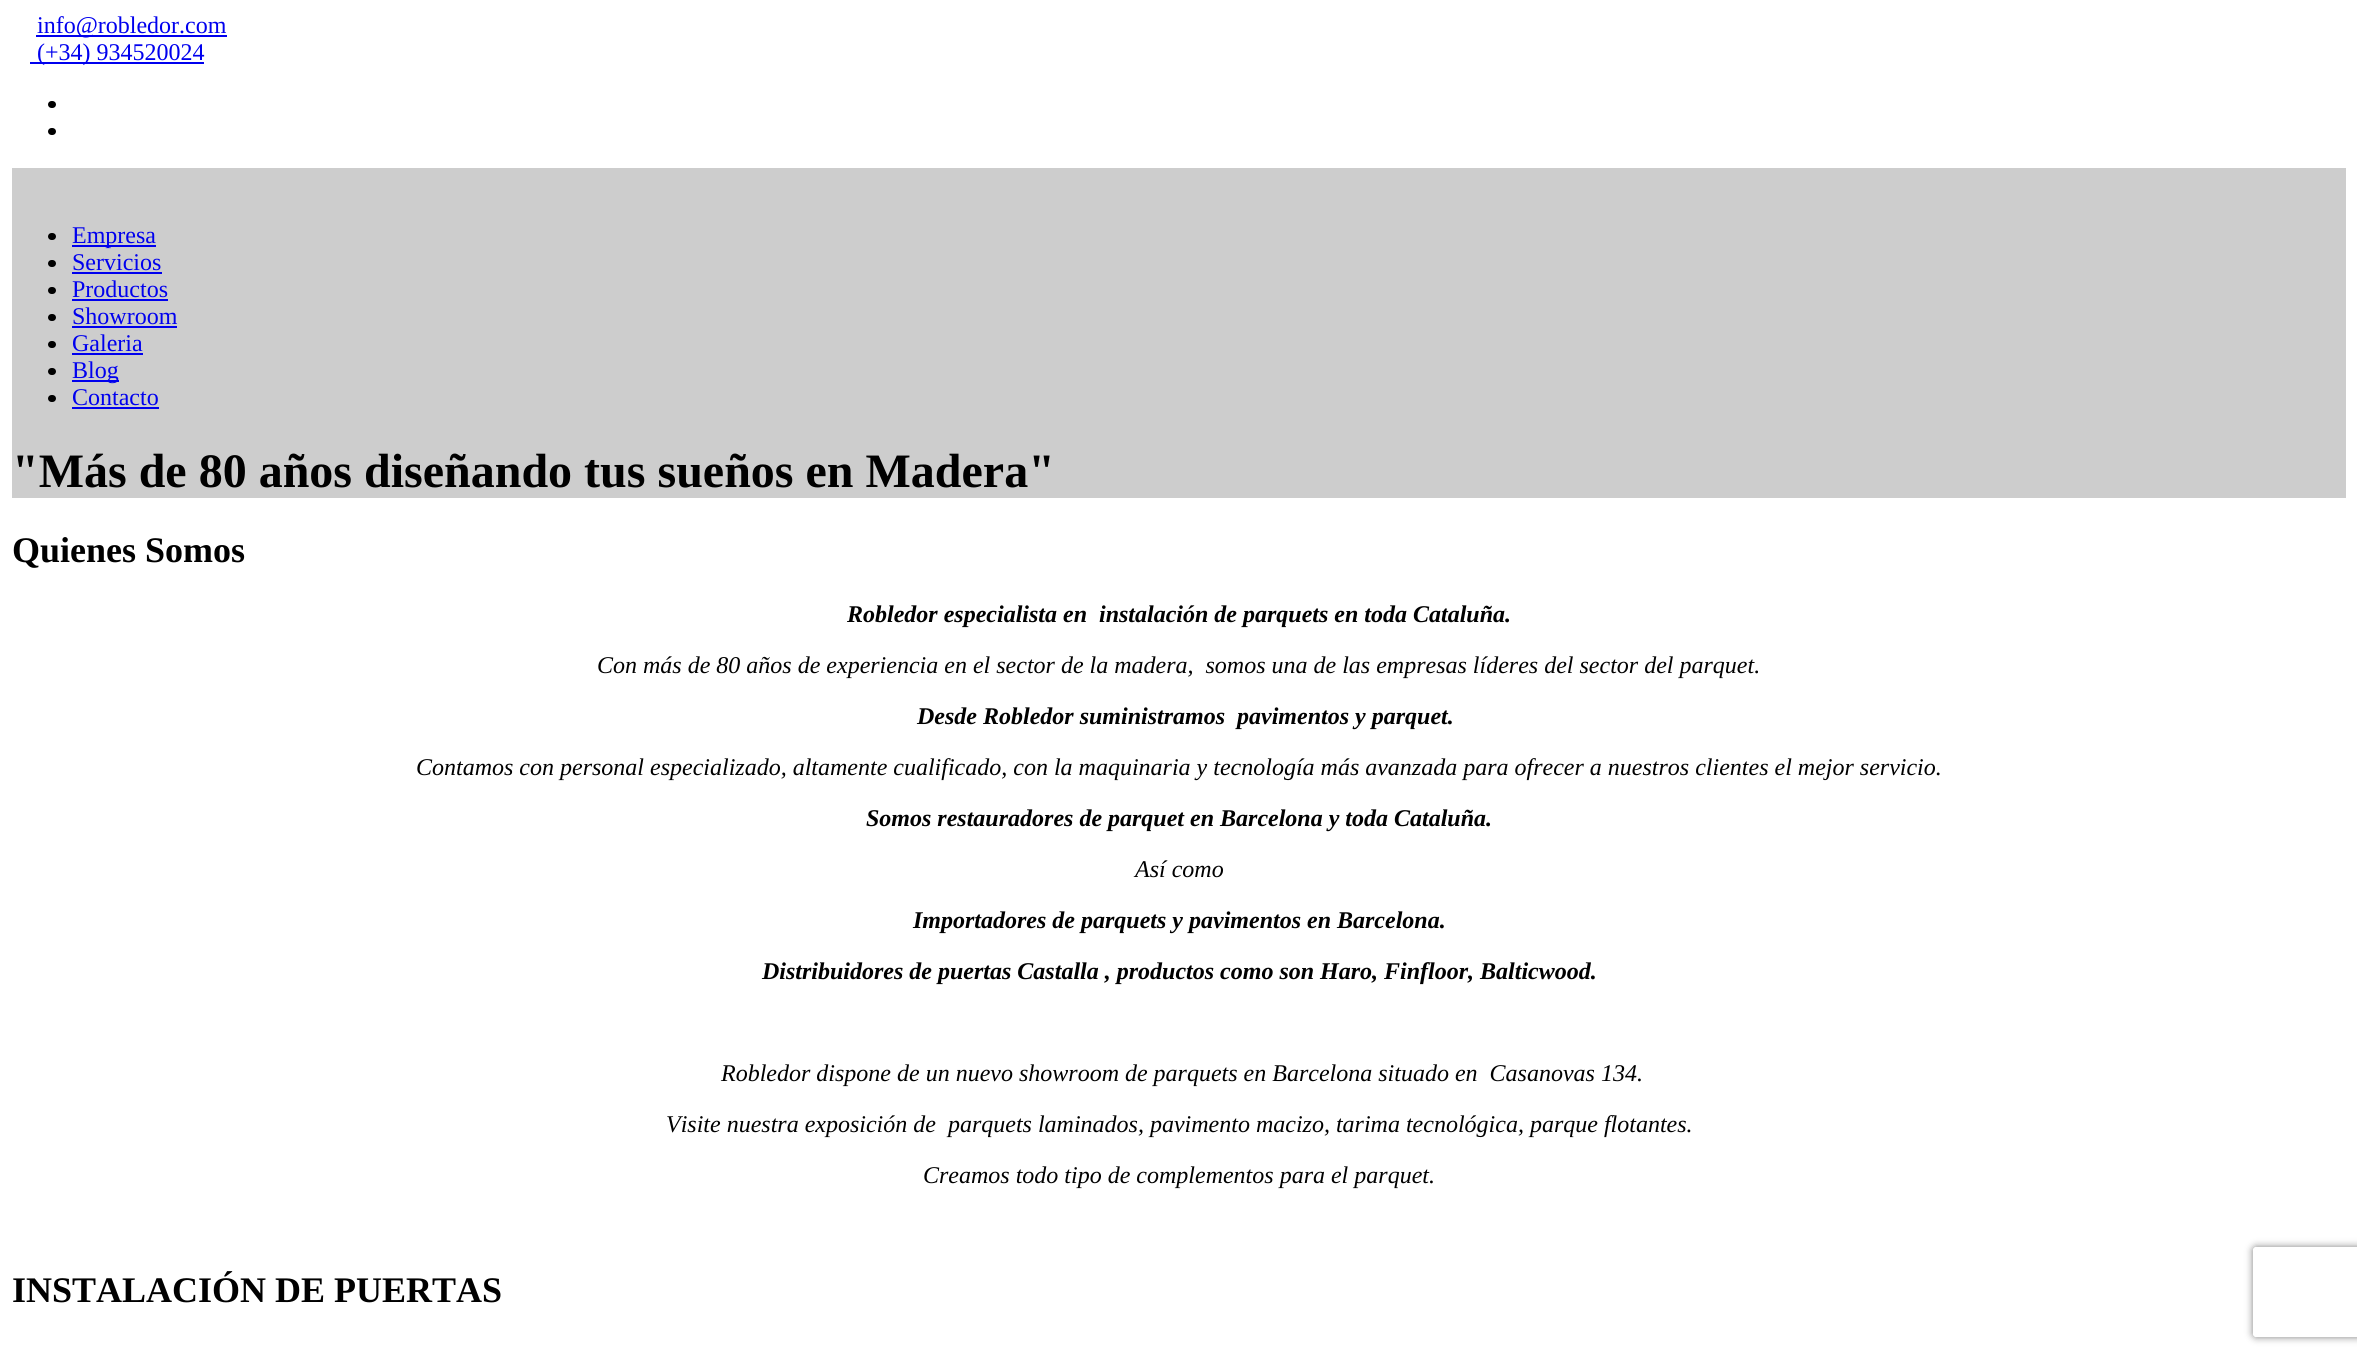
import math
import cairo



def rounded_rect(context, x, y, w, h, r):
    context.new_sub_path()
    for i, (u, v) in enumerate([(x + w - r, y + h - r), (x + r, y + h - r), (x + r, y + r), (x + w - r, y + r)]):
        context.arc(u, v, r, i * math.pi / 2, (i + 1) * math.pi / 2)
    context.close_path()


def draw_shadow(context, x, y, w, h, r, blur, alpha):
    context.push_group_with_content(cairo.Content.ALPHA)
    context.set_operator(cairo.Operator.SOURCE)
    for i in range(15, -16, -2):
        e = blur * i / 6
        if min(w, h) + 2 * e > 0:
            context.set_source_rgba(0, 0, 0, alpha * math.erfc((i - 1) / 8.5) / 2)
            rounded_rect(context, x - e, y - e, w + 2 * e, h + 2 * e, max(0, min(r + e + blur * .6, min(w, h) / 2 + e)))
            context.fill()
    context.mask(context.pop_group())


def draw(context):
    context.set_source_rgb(1, 1, 1)
    context.paint()
    context.set_source_rgb(0, 0, 238 / 255)
    context.rectangle(36, 35, 191, 2)
    context.fill()
    context.rectangle(30, 62, 174, 2)
    context.fill()
    context.set_source_rgb(0, 0, 0)
    rounded_rect(context, 48, 101, 8, 7, 3.5)
    context.fill()
    rounded_rect(context, 48, 128, 8, 7, 3.5)
    context.fill()
    context.set_source_rgb(205 / 255, 205 / 255, 205 / 255)
    context.rectangle(12, 168, 2334, 330)
    context.fill()
    context.set_source_rgb(0, 0, 0)
    rounded_rect(context, 48, 233, 8, 7, 3.5)
    context.fill()
    context.set_source_rgb(0, 0, 238 / 255)
    context.rectangle(72, 245, 84, 2)
    context.fill()
    context.set_source_rgb(0, 0, 0)
    rounded_rect(context, 48, 260, 8, 7, 3.5)
    context.fill()
    context.set_source_rgb(0, 0, 238 / 255)
    context.rectangle(72, 272, 90, 2)
    context.fill()
    context.set_source_rgb(0, 0, 0)
    rounded_rect(context, 48, 287, 8, 7, 3.5)
    context.fill()
    context.set_source_rgb(0, 0, 238 / 255)
    context.rectangle(72, 299, 96, 2)
    context.fill()
    context.set_source_rgb(0, 0, 0)
    rounded_rect(context, 48, 314, 8, 7, 3.5)
    context.fill()
    context.set_source_rgb(0, 0, 238 / 255)
    context.rectangle(72, 326, 105, 2)
    context.fill()
    context.set_source_rgb(0, 0, 0)
    rounded_rect(context, 48, 341, 8, 7, 3.5)
    context.fill()
    context.set_source_rgb(0, 0, 238 / 255)
    context.rectangle(72, 353, 71, 2)
    context.fill()
    context.set_source_rgb(0, 0, 0)
    rounded_rect(context, 48, 368, 8, 7, 3.5)
    context.fill()
    context.set_source_rgb(0, 0, 238 / 255)
    context.rectangle(72, 380, 47, 2)
    context.fill()
    context.set_source_rgb(0, 0, 0)
    rounded_rect(context, 48, 395, 8, 7, 3.5)
    context.fill()
    context.set_source_rgb(0, 0, 238 / 255)
    context.rectangle(72, 407, 87, 2)
    context.fill()
    context.save()
    context.set_fill_rule(cairo.FillRule.EVEN_ODD)
    context.new_path()
    context.move_to(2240, 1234)
    context.line_to(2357, 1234)
    context.line_to(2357, 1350)
    context.line_to(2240, 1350)
    context.close_path()
    context.move_to(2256, 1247)
    context.line_to(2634, 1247)
    context.curve_to(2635.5, 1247, 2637, 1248.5, 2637, 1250)
    context.line_to(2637, 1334)
    context.curve_to(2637, 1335.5, 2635.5, 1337, 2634, 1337)
    context.line_to(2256, 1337)
    context.curve_to(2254.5, 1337, 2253, 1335.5, 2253, 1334)
    context.line_to(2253, 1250)
    context.curve_to(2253, 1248.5, 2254.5, 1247, 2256, 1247)
    context.close_path()
    context.clip()
    context.set_source_rgb(128 / 255, 128 / 255, 128 / 255)
    draw_shadow(context, 2253, 1247, 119, 90, 3, 4, 1)
    context.restore()
    context.select_font_face("Liberation Serif")
    context.set_font_size(24)
    context.move_to(37, 33)
    context.show_text("info@robledor.com")
    context.move_to(37, 60)
    context.show_text("(+34) 934520024")
    context.move_to(72, 243)
    context.show_text("Empresa")
    context.move_to(72, 270)
    context.show_text("Servicios")
    context.move_to(72, 297)
    context.show_text("Productos")
    context.move_to(72, 324)
    context.show_text("Showroom")
    context.move_to(72, 351)
    context.show_text("Galeria")
    context.move_to(72, 378)
    context.show_text("Blog")
    context.move_to(72, 405)
    context.show_text("Contacto")
    context.select_font_face("Liberation Serif", cairo.FontSlant.NORMAL, cairo.FontWeight.BOLD)
    context.set_font_size(48)
    context.set_source_rgb(0, 0, 0)
    context.move_to(12, 487)
    context.show_text("\"Más de 80 años diseñando tus sueños en Madera\"")
    context.set_font_size(36)
    context.move_to(12, 562)
    context.show_text("Quienes Somos")
    context.select_font_face("Liberation Serif", cairo.FontSlant.ITALIC, cairo.FontWeight.BOLD)
    context.set_font_size(24)
    context.move_to(847, 622)
    context.show_text("Robledor especialista en  instalación de parquets en toda Cataluña.")
    context.select_font_face("Liberation Serif", cairo.FontSlant.ITALIC)
    context.move_to(597, 673)
    context.show_text("Con más de 80 años de experiencia en el sector de la madera,  somos una de las empresas líderes del sector del parquet.")
    context.select_font_face("Liberation Serif", cairo.FontSlant.ITALIC, cairo.FontWeight.BOLD)
    context.move_to(917, 724)
    context.show_text("Desde Robledor suministramos  pavimentos y parquet.")
    context.select_font_face("Liberation Serif", cairo.FontSlant.ITALIC)
    context.move_to(416, 775)
    context.show_text("Contamos con personal especializado, altamente cualificado, con la maquinaria y tecnología más avanzada para ofrecer a nuestros clientes el mejor servicio.")
    context.select_font_face("Liberation Serif", cairo.FontSlant.ITALIC, cairo.FontWeight.BOLD)
    context.move_to(866, 826)
    context.show_text("Somos restauradores de parquet en Barcelona y toda Cataluña.")
    context.select_font_face("Liberation Serif", cairo.FontSlant.ITALIC)
    context.move_to(1135, 877)
    context.show_text("Así como")
    context.select_font_face("Liberation Serif", cairo.FontSlant.ITALIC, cairo.FontWeight.BOLD)
    context.move_to(913, 928)
    context.show_text("Importadores de parquets y pavimentos en Barcelona.")
    context.move_to(762, 979)
    context.show_text("Distribuidores de puertas Castalla , productos como son Haro, Finfloor, Balticwood.")
    context.select_font_face("Liberation Serif", cairo.FontSlant.ITALIC)
    context.move_to(721, 1081)
    context.show_text("Robledor dispone de un nuevo showroom de parquets en Barcelona situado en  Casanovas 134.")
    context.move_to(666, 1132)
    context.show_text("Visite nuestra exposición de  parquets laminados, pavimento macizo, tarima tecnológica, parque flotantes.")
    context.move_to(923, 1183)
    context.show_text("Creamos todo tipo de complementos para el parquet.")
    context.select_font_face("Liberation Serif", cairo.FontSlant.NORMAL, cairo.FontWeight.BOLD)
    context.set_font_size(36)
    context.move_to(12, 1302)
    context.show_text("INSTALACIÓN DE PUERTAS")


surface = cairo.ImageSurface(cairo.Format.RGB24, 2357, 1357)
context = cairo.Context(surface)
options = cairo.FontOptions()
options.set_hint_metrics(cairo.HintMetrics.OFF)
options.set_hint_style(cairo.HintStyle.NONE)
context.set_font_options(options)
context.set_miter_limit(4)
draw(context)
surface.write_to_png("out.png")
